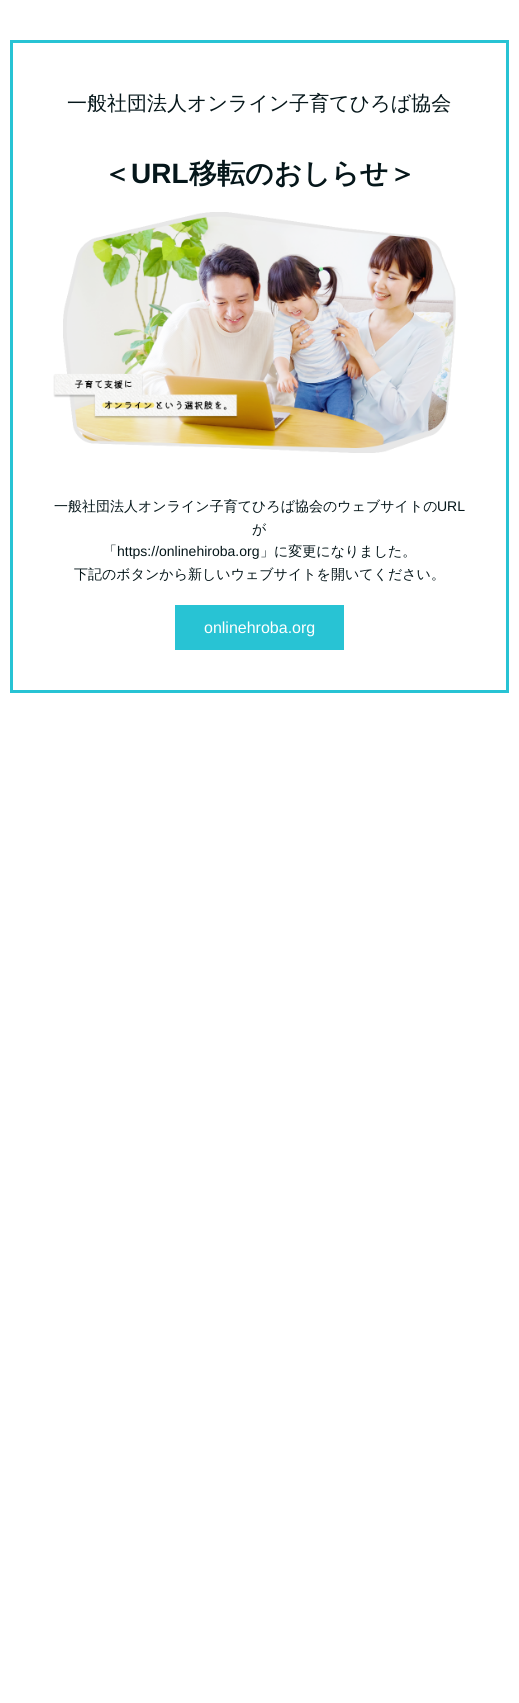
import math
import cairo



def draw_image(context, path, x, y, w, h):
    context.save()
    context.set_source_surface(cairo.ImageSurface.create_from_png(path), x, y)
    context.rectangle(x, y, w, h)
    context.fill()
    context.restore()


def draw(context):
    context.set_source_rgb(1, 1, 1)
    context.paint()
    context.rectangle(11.5, 41.5, 496, 650)
    context.set_source_rgb(40 / 255, 195 / 255, 212 / 255)
    context.set_line_width(3)
    context.stroke()
    draw_image(context, "images/1.png", 53, 212, 403, 241)
    context.rectangle(175, 605, 169, 45)
    context.fill()
    context.select_font_face("WenQuanYi Zen Hei Medium")
    context.set_font_size(20)
    context.set_source_rgb(5 / 255, 22 / 255, 26 / 255)
    context.move_to(67, 110)
    context.show_text("一般社団法人オンライン子育てひろば協会")
    context.select_font_face("WenQuanYi Zen Hei", cairo.FontSlant.NORMAL, cairo.FontWeight.BOLD)
    context.set_font_size(28)
    context.move_to(103, 183)
    context.show_text("＜")
    context.select_font_face("Liberation Sans", cairo.FontSlant.NORMAL, cairo.FontWeight.BOLD)
    context.move_to(131, 183)
    context.show_text("URL")
    context.select_font_face("WenQuanYi Zen Hei", cairo.FontSlant.NORMAL, cairo.FontWeight.BOLD)
    context.move_to(189, 183)
    context.show_text("移転のおしらせ＞")
    context.select_font_face("WenQuanYi Zen Hei Medium")
    context.set_font_size(14)
    context.move_to(54, 511)
    context.show_text("一般社団法人オンライン子育てひろば協会のウェブサイトの")
    context.select_font_face("Liberation Sans")
    context.move_to(437, 511)
    context.show_text("URL")
    context.select_font_face("WenQuanYi Zen Hei Medium")
    context.move_to(252, 534)
    context.show_text("が")
    context.move_to(103, 556)
    context.show_text("「")
    context.select_font_face("Liberation Sans")
    context.move_to(117, 556)
    context.show_text("https://onlinehiroba.org")
    context.select_font_face("WenQuanYi Zen Hei Medium")
    context.move_to(260, 556)
    context.show_text("」に変更になりました。")
    context.move_to(74, 579)
    context.show_text("下記のボタンから新しいウェブサイトを開いてください。")
    context.select_font_face("Liberation Sans")
    context.set_font_size(16)
    context.set_source_rgb(1, 1, 1)
    context.move_to(204, 633)
    context.show_text("onlinehroba.org")


surface = cairo.ImageSurface(cairo.Format.RGB24, 519, 1703)
context = cairo.Context(surface)
options = cairo.FontOptions()
options.set_hint_metrics(cairo.HintMetrics.OFF)
options.set_hint_style(cairo.HintStyle.NONE)
context.set_font_options(options)
context.set_miter_limit(4)
draw(context)
surface.write_to_png("out.png")
